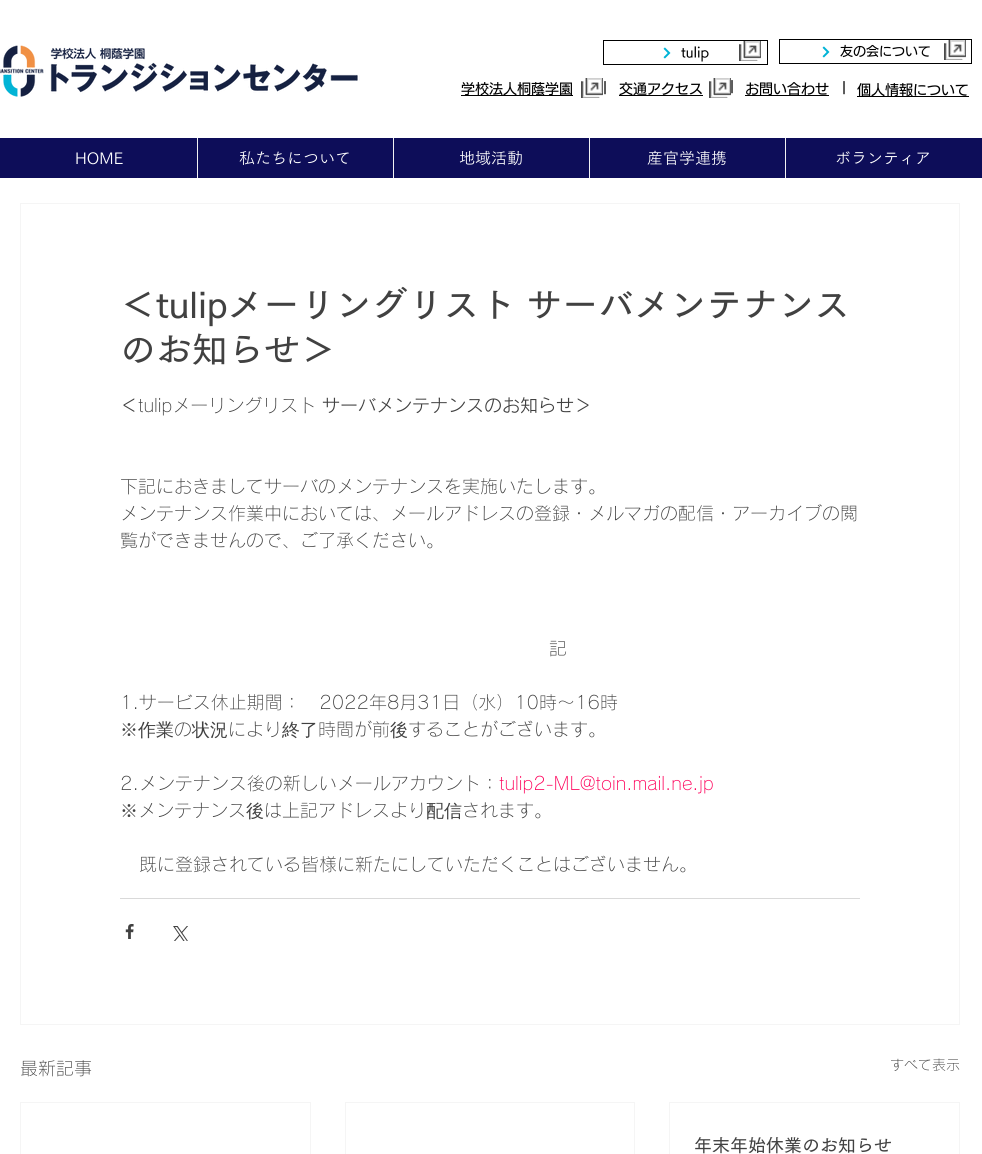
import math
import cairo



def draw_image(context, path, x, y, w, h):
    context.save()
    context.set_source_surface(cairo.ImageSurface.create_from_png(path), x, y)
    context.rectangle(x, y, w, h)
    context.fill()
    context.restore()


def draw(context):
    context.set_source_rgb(1, 1, 1)
    context.paint()
    draw_image(context, "images/1.png", 0, 45, 360, 52)
    context.rectangle(603.5, 40.5, 164, 24)
    context.set_source_rgb(0, 0, 0)
    context.set_line_width(1)
    context.stroke()
    draw_image(context, "images/2.png", 663, 47, 8, 12)
    draw_image(context, "images/3.png", 739, 41, 22, 20)
    context.rectangle(779.5, 39.5, 192, 24)
    context.stroke()
    draw_image(context, "images/2.png", 822, 46, 8, 12)
    draw_image(context, "images/3.png", 944, 40, 22, 20)
    context.rectangle(461, 95, 112, 1)
    context.fill()
    draw_image(context, "images/3.png", 581, 78, 22, 20)
    context.rectangle(619, 95, 84, 1)
    context.fill()
    draw_image(context, "images/3.png", 709, 78, 22, 20)
    context.rectangle(745, 95, 84, 1)
    context.fill()
    context.rectangle(857, 96, 112, 1)
    context.fill()
    context.set_source_rgb(13 / 255, 13 / 255, 89 / 255)
    context.rectangle(0, 138, 982, 40)
    context.fill()
    context.set_source_rgb(242 / 255, 242 / 255, 242 / 255)
    context.rectangle(197, 138, 1, 40)
    context.fill()
    context.rectangle(393, 138, 1, 40)
    context.fill()
    context.rectangle(589, 138, 1, 40)
    context.fill()
    context.rectangle(785, 138, 1, 40)
    context.fill()
    context.rectangle(20.5, 203.5, 939, 821)
    context.set_source_rgb(245 / 255, 245 / 255, 245 / 255)
    context.stroke()
    context.set_source_rgb(217 / 255, 217 / 255, 217 / 255)
    context.rectangle(120, 898, 740, 1)
    context.fill()
    draw_image(context, "images/4.png", 125, 924, 9, 15)
    draw_image(context, "images/5.png", 173, 926, 15, 15)
    context.rectangle(20.5, 1102.5, 290, 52)
    context.set_source_rgb(245 / 255, 245 / 255, 245 / 255)
    context.stroke()
    context.rectangle(345.5, 1102.5, 289, 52)
    context.stroke()
    context.rectangle(669.5, 1102.5, 290, 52)
    context.stroke()
    context.select_font_face("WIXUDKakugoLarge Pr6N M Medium")
    context.set_font_size(13)
    context.set_source_rgb(0, 0, 0)
    context.move_to(681, 57)
    context.show_text("tulip")
    context.move_to(840, 56)
    context.show_text("友の会について")
    context.set_font_size(14)
    context.move_to(461, 94)
    context.show_text("学校法人桐蔭学園")
    context.move_to(603, 92)
    context.show_text("|")
    context.move_to(619, 94)
    context.show_text("交通アクセス")
    context.move_to(730, 91)
    context.show_text("|")
    context.move_to(745, 94)
    context.show_text("お問い合わせ")
    context.move_to(842, 92)
    context.show_text("|")
    context.move_to(857, 95)
    context.show_text("個人情報について")
    context.select_font_face("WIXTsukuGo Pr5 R")
    context.set_font_size(16)
    context.set_source_rgb(1, 1, 1)
    context.move_to(75, 164)
    context.show_text("HOME")
    context.move_to(239, 164)
    context.show_text("私たちについて")
    context.move_to(459, 164)
    context.show_text("地域活動")
    context.move_to(647, 164)
    context.show_text("産官学連携")
    context.move_to(835, 164)
    context.show_text("ボランティア")
    context.select_font_face("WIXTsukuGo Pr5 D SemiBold")
    context.set_font_size(36)
    context.set_source_rgb(65 / 255, 65 / 255, 65 / 255)
    context.move_to(120, 318)
    context.show_text("＜tulipメーリングリスト サーバメンテナンス")
    context.move_to(120, 363)
    context.show_text("のお知らせ＞")
    context.select_font_face("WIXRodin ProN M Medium")
    context.set_font_size(18)
    context.move_to(120, 412)
    context.show_text("＜")
    context.select_font_face("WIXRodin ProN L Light")
    context.move_to(138, 412)
    context.show_text("tulipメーリングリスト")
    context.select_font_face("WIXRodin ProN M Medium")
    context.move_to(322, 412)
    context.show_text("サーバメンテナンスのお知らせ＞")
    context.select_font_face("WIXRodin ProN L Light")
    context.move_to(120, 493)
    context.show_text("下記におきましてサーバのメンテナンスを実施いたします。")
    context.move_to(120, 520)
    context.show_text("メンテナンス作業中においては、メールアドレスの登録・メルマガの配信・アーカイブの閲")
    context.move_to(120, 547)
    context.show_text("覧ができませんので、ご了承ください。")
    context.move_to(549, 655)
    context.show_text("記")
    context.move_to(120, 709)
    context.show_text("1.サービス休止期間：   2022年8月31日（水）10時～16時")
    context.select_font_face("WenQuanYi Zen Hei Medium")
    context.move_to(120, 736)
    context.show_text("※作業")
    context.select_font_face("WIXRodin ProN L Light")
    context.move_to(174, 736)
    context.show_text("の")
    context.select_font_face("WenQuanYi Zen Hei Medium")
    context.move_to(192, 736)
    context.show_text("状況")
    context.select_font_face("WIXRodin ProN L Light")
    context.move_to(228, 736)
    context.show_text("により")
    context.select_font_face("WenQuanYi Zen Hei Medium")
    context.move_to(282, 736)
    context.show_text("終了")
    context.select_font_face("WIXRodin ProN L Light")
    context.move_to(318, 736)
    context.show_text("時間が前")
    context.select_font_face("WenQuanYi Zen Hei Medium")
    context.move_to(390, 736)
    context.show_text("後")
    context.select_font_face("WIXRodin ProN L Light")
    context.move_to(408, 736)
    context.show_text("することがございます。")
    context.move_to(120, 790)
    context.show_text("2.メンテナンス後の新しいメールアカウント：")
    context.set_source_rgb(1, 0, 90 / 255)
    context.move_to(499, 790)
    context.show_text("tulip2-ML@toin.mail.ne.jp")
    context.select_font_face("WenQuanYi Zen Hei Medium")
    context.set_source_rgb(65 / 255, 65 / 255, 65 / 255)
    context.move_to(120, 817)
    context.show_text("※")
    context.select_font_face("WIXRodin ProN L Light")
    context.move_to(138, 817)
    context.show_text("メンテナンス")
    context.select_font_face("WenQuanYi Zen Hei Medium")
    context.move_to(246, 817)
    context.show_text("後")
    context.select_font_face("WIXRodin ProN L Light")
    context.move_to(264, 817)
    context.show_text("は上記アドレスより")
    context.select_font_face("WenQuanYi Zen Hei Medium")
    context.move_to(426, 817)
    context.show_text("配信")
    context.select_font_face("WIXRodin ProN L Light")
    context.move_to(462, 817)
    context.show_text("されます。")
    context.move_to(139, 871)
    context.show_text("既に登録されている皆様に新たにしていただくことはございません。")
    context.move_to(20, 1075)
    context.show_text("最新記事")
    context.set_font_size(14)
    context.move_to(890, 1070)
    context.show_text("すべて表示")
    context.select_font_face("WIXTsukuGo Pr5 D SemiBold")
    context.set_font_size(18)
    context.move_to(694, 1152)
    context.show_text("年末年始休業のお知らせ")


surface = cairo.ImageSurface(cairo.Format.RGB24, 982, 1154)
context = cairo.Context(surface)
options = cairo.FontOptions()
options.set_hint_metrics(cairo.HintMetrics.OFF)
options.set_hint_style(cairo.HintStyle.NONE)
context.set_font_options(options)
context.set_miter_limit(4)
draw(context)
surface.write_to_png("out.png")
